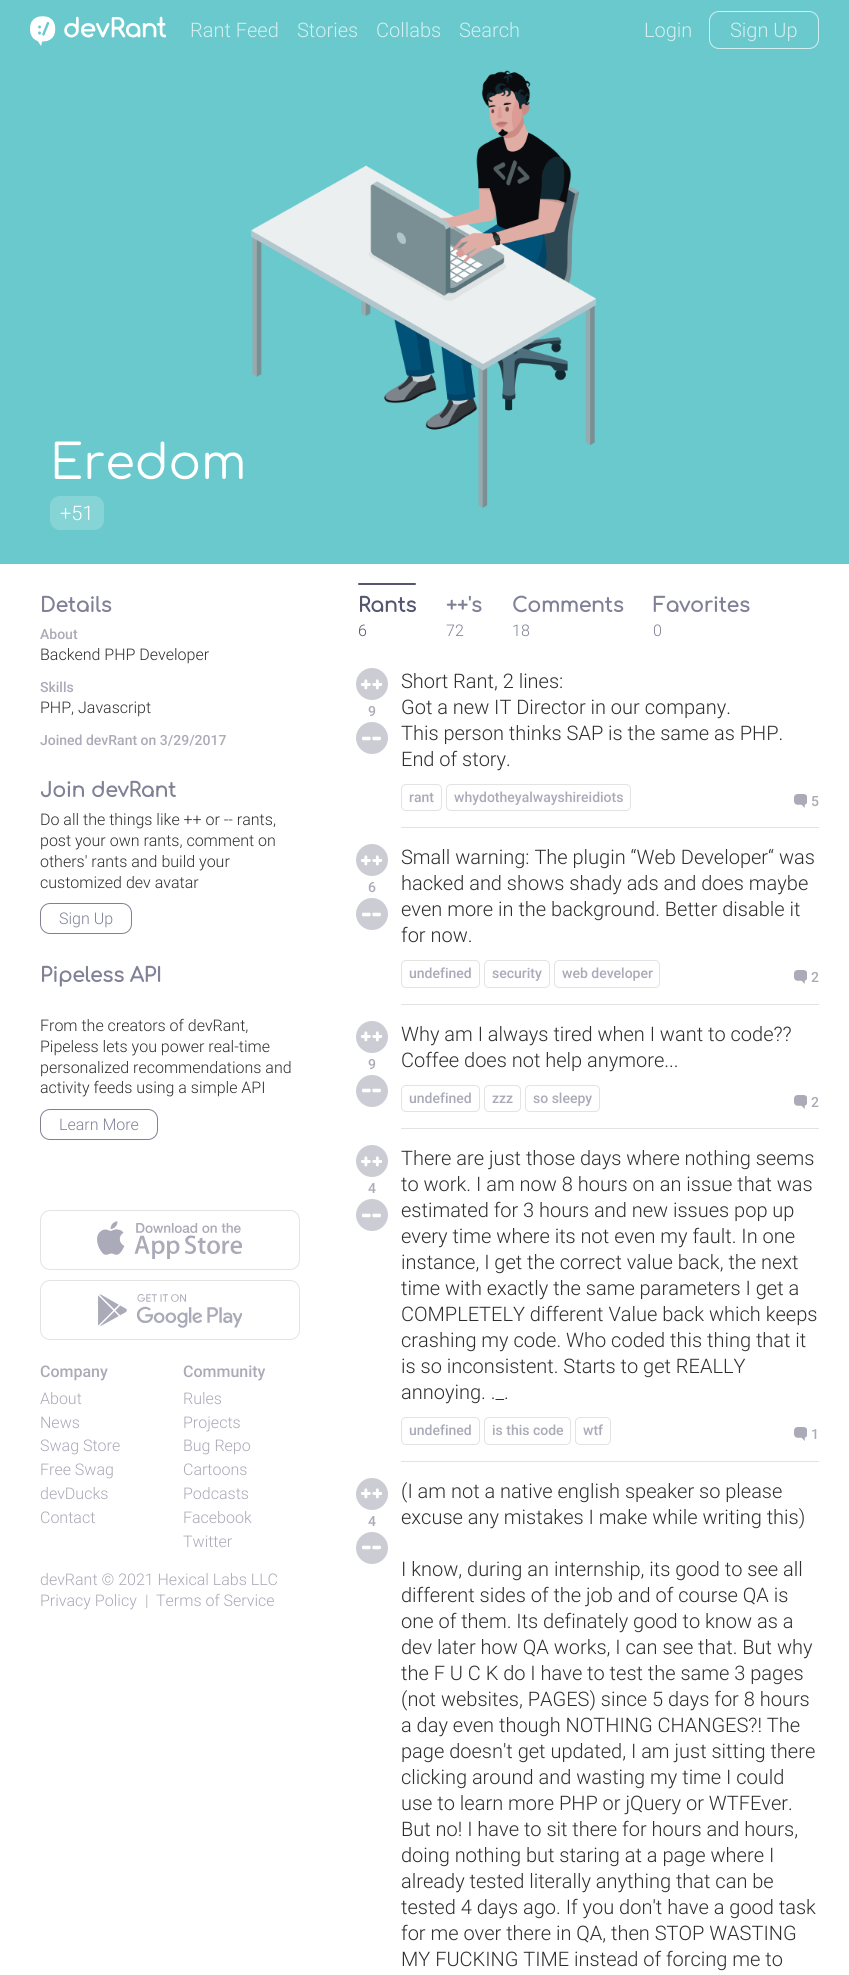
import math
import cairo



def rounded_rect(context, x, y, w, h, r):
    context.new_sub_path()
    for i, (u, v) in enumerate([(x + w - r, y + h - r), (x + r, y + h - r), (x + r, y + r), (x + w - r, y + r)]):
        context.arc(u, v, r, i * math.pi / 2, (i + 1) * math.pi / 2)
    context.close_path()


def draw_image(context, path, x, y, w, h):
    context.save()
    context.set_source_surface(cairo.ImageSurface.create_from_png(path), x, y)
    context.rectangle(x, y, w, h)
    context.fill()
    context.restore()


def draw(context):
    context.set_source_rgb(1, 1, 1)
    context.paint()
    context.set_source_rgb(105 / 255, 201 / 255, 205 / 255)
    context.rectangle(0, 0, 849, 564)
    context.fill()
    draw_image(context, "images/1.png", 30, 16, 26, 30)
    draw_image(context, "images/2.png", 64, 16, 102, 22)
    rounded_rect(context, 709.5, 11.5, 109, 37, 9.5)
    context.set_source_rgb(210 / 255, 239 / 255, 240 / 255)
    context.set_line_width(1)
    context.stroke()
    context.set_source_rgb(135 / 255, 212 / 255, 215 / 255)
    rounded_rect(context, 50, 496, 54, 34, 10)
    context.fill()
    draw_image(context, "images/3.png", 251, 70, 346, 438)
    rounded_rect(context, 40.5, 903.5, 91, 30, 9.5)
    context.set_source_rgb(128 / 255, 129 / 255, 150 / 255)
    context.stroke()
    rounded_rect(context, 40.5, 1109.5, 117, 30, 9.5)
    context.stroke()
    context.set_source_rgb(84 / 255, 85 / 255, 110 / 255)
    rounded_rect(context, 358, 583, 58, 2, 1)
    context.fill()
    context.set_source_rgb(204 / 255, 204 / 255, 212 / 255)
    context.arc(372, 684, 16, 0, 2 * math.pi)
    context.fill()
    draw_image(context, "images/4.png", 361, 679, 21, 11)
    context.arc(372, 738, 16, 0, 2 * math.pi)
    context.fill()
    draw_image(context, "images/5.png", 362, 736, 19, 5)
    context.set_source_rgb(227 / 255, 227 / 255, 227 / 255)
    context.rectangle(401, 827, 418, 1)
    context.fill()
    rounded_rect(context, 401.5, 784.5, 40, 26, 4.5)
    context.stroke()
    rounded_rect(context, 446.5, 784.5, 184, 26, 4.5)
    context.stroke()
    draw_image(context, "images/6.png", 794, 794, 13, 14)
    context.set_source_rgb(204 / 255, 204 / 255, 212 / 255)
    context.arc(372, 860, 16, 0, 2 * math.pi)
    context.fill()
    draw_image(context, "images/4.png", 361, 855, 21, 11)
    context.arc(372, 914, 16, 0, 2 * math.pi)
    context.fill()
    draw_image(context, "images/7.png", 362, 912, 19, 5)
    context.set_source_rgb(227 / 255, 227 / 255, 227 / 255)
    context.rectangle(401, 1004, 418, 1)
    context.fill()
    rounded_rect(context, 401.5, 960.5, 78, 27, 4.5)
    context.stroke()
    rounded_rect(context, 484.5, 960.5, 65, 27, 4.5)
    context.stroke()
    rounded_rect(context, 554.5, 960.5, 105, 27, 4.5)
    context.stroke()
    draw_image(context, "images/6.png", 794, 970, 13, 14)
    context.set_source_rgb(204 / 255, 204 / 255, 212 / 255)
    context.arc(372, 1037, 16, 0, 2 * math.pi)
    context.fill()
    draw_image(context, "images/4.png", 361, 1031, 21, 11)
    context.arc(372, 1091, 16, 0, 2 * math.pi)
    context.fill()
    draw_image(context, "images/7.png", 362, 1088, 19, 5)
    context.set_source_rgb(227 / 255, 227 / 255, 227 / 255)
    context.rectangle(401, 1128, 418, 1)
    context.fill()
    rounded_rect(context, 401.5, 1085.5, 78, 26, 4.5)
    context.stroke()
    rounded_rect(context, 484.5, 1085.5, 36, 26, 4.5)
    context.stroke()
    rounded_rect(context, 525.5, 1085.5, 74, 26, 4.5)
    context.stroke()
    draw_image(context, "images/6.png", 794, 1095, 13, 14)
    context.set_source_rgb(204 / 255, 204 / 255, 212 / 255)
    context.arc(372, 1161, 16, 0, 2 * math.pi)
    context.fill()
    draw_image(context, "images/4.png", 361, 1156, 21, 11)
    context.arc(372, 1215, 16, 0, 2 * math.pi)
    context.fill()
    draw_image(context, "images/7.png", 362, 1213, 19, 5)
    context.set_source_rgb(227 / 255, 227 / 255, 227 / 255)
    context.rectangle(401, 1461, 418, 1)
    context.fill()
    rounded_rect(context, 401.5, 1417.5, 78, 27, 4.5)
    context.stroke()
    rounded_rect(context, 484.5, 1417.5, 86, 27, 4.5)
    context.stroke()
    rounded_rect(context, 575.5, 1417.5, 35, 27, 4.5)
    context.stroke()
    draw_image(context, "images/6.png", 794, 1427, 13, 14)
    context.set_source_rgb(204 / 255, 204 / 255, 212 / 255)
    context.arc(372, 1494, 16, 0, 2 * math.pi)
    context.fill()
    draw_image(context, "images/4.png", 361, 1488, 21, 11)
    context.arc(372, 1548, 16, 0, 2 * math.pi)
    context.fill()
    draw_image(context, "images/7.png", 362, 1545, 19, 5)
    rounded_rect(context, 40.5, 1210.5, 259, 59, 9.5)
    context.set_source_rgb(227 / 255, 227 / 255, 227 / 255)
    context.stroke()
    draw_image(context, "images/8.png", 97, 1221, 145, 38)
    rounded_rect(context, 40.5, 1280.5, 259, 59, 9.5)
    context.stroke()
    draw_image(context, "images/9.png", 98, 1294, 144, 34)
    context.select_font_face("Roboto Light")
    context.set_font_size(20)
    context.set_source_rgb(210 / 255, 239 / 255, 240 / 255)
    context.move_to(190, 37)
    context.show_text("Rant Feed")
    context.move_to(297, 37)
    context.show_text("Stories")
    context.move_to(376, 37)
    context.show_text("Collabs")
    context.move_to(459, 37)
    context.show_text("Search")
    context.move_to(644, 37)
    context.show_text("Login")
    context.move_to(730, 37)
    context.show_text("Sign Up")
    context.select_font_face("Comfortaa")
    context.set_font_size(48)
    context.set_source_rgb(1, 1, 1)
    context.move_to(50, 479)
    context.show_text("Eredom")
    context.select_font_face("Roboto Light")
    context.set_font_size(20)
    context.move_to(60, 520)
    context.show_text("+51")
    context.select_font_face("Comfortaa", cairo.FontSlant.NORMAL, cairo.FontWeight.BOLD)
    context.set_source_rgb(128 / 255, 129 / 255, 150 / 255)
    context.move_to(40, 612)
    context.show_text("Details")
    context.select_font_face("Roboto Medium")
    context.set_font_size(14)
    context.set_source_rgb(170 / 255, 170 / 255, 184 / 255)
    context.move_to(40, 639)
    context.show_text("About")
    context.select_font_face("Roboto Light")
    context.set_font_size(16)
    context.set_source_rgb(47 / 255, 47 / 255, 50 / 255)
    context.move_to(40, 660)
    context.show_text("Backend PHP Developer")
    context.select_font_face("Roboto Medium")
    context.set_font_size(14)
    context.set_source_rgb(170 / 255, 170 / 255, 184 / 255)
    context.move_to(40, 692)
    context.show_text("Skills")
    context.select_font_face("Roboto Light")
    context.set_font_size(16)
    context.set_source_rgb(47 / 255, 47 / 255, 50 / 255)
    context.move_to(40, 713)
    context.show_text("PHP, Javascript")
    context.select_font_face("Roboto Medium")
    context.set_font_size(14)
    context.set_source_rgb(170 / 255, 170 / 255, 184 / 255)
    context.move_to(40, 745)
    context.show_text("Joined devRant on 3/29/2017")
    context.select_font_face("Comfortaa", cairo.FontSlant.NORMAL, cairo.FontWeight.BOLD)
    context.set_font_size(20)
    context.set_source_rgb(128 / 255, 129 / 255, 150 / 255)
    context.move_to(40, 797)
    context.show_text("Join devRant")
    context.select_font_face("Roboto Light")
    context.set_font_size(16)
    context.set_source_rgb(47 / 255, 47 / 255, 50 / 255)
    context.move_to(40, 825)
    context.show_text("Do all the things like ++ or -- rants,")
    context.move_to(40, 846)
    context.show_text("post your own rants, comment on")
    context.move_to(40, 867)
    context.show_text("others' rants and build your")
    context.move_to(40, 888)
    context.show_text("customized dev avatar")
    context.set_source_rgb(128 / 255, 129 / 255, 150 / 255)
    context.move_to(59, 924)
    context.show_text("Sign Up")
    context.select_font_face("Comfortaa", cairo.FontSlant.NORMAL, cairo.FontWeight.BOLD)
    context.set_font_size(20)
    context.move_to(40, 982)
    context.show_text("Pipeless API")
    context.select_font_face("Roboto Light")
    context.set_font_size(16)
    context.set_source_rgb(47 / 255, 47 / 255, 50 / 255)
    context.move_to(40, 1031)
    context.show_text("From the creators of devRant,")
    context.move_to(40, 1052)
    context.show_text("Pipeless lets you power real-time")
    context.move_to(40, 1073)
    context.show_text("personalized recommendations and")
    context.move_to(40, 1093)
    context.show_text("activity feeds using a simple API")
    context.set_source_rgb(128 / 255, 129 / 255, 150 / 255)
    context.move_to(59, 1130)
    context.show_text("Learn More")
    context.select_font_face("Comfortaa", cairo.FontSlant.NORMAL, cairo.FontWeight.BOLD)
    context.set_font_size(20)
    context.set_source_rgb(84 / 255, 85 / 255, 110 / 255)
    context.move_to(358, 612)
    context.show_text("Rants")
    context.select_font_face("Roboto Light")
    context.set_font_size(16)
    context.move_to(358, 636)
    context.show_text("6")
    context.select_font_face("Comfortaa", cairo.FontSlant.NORMAL, cairo.FontWeight.BOLD)
    context.set_font_size(20)
    context.set_source_rgb(128 / 255, 129 / 255, 150 / 255)
    context.move_to(446, 612)
    context.show_text("++'s")
    context.select_font_face("Roboto Light")
    context.set_font_size(16)
    context.move_to(446, 636)
    context.show_text("72")
    context.select_font_face("Comfortaa", cairo.FontSlant.NORMAL, cairo.FontWeight.BOLD)
    context.set_font_size(20)
    context.move_to(512, 612)
    context.show_text("Comments")
    context.select_font_face("Roboto Light")
    context.set_font_size(16)
    context.move_to(512, 636)
    context.show_text("18")
    context.select_font_face("Comfortaa", cairo.FontSlant.NORMAL, cairo.FontWeight.BOLD)
    context.set_font_size(20)
    context.move_to(653, 612)
    context.show_text("Favorites")
    context.select_font_face("Roboto Light")
    context.set_font_size(16)
    context.move_to(653, 636)
    context.show_text("0")
    context.select_font_face("Roboto Medium")
    context.set_font_size(14)
    context.set_source_rgb(170 / 255, 170 / 255, 184 / 255)
    context.move_to(368, 716)
    context.show_text("9")
    context.select_font_face("Roboto Light")
    context.set_font_size(20)
    context.set_source_rgb(47 / 255, 47 / 255, 50 / 255)
    context.move_to(401, 688)
    context.show_text("Short Rant, 2 lines:")
    context.move_to(401, 714)
    context.show_text("Got a new IT Director in our company.")
    context.move_to(401, 740)
    context.show_text("This person thinks SAP is the same as PHP.")
    context.move_to(401, 766)
    context.show_text("End of story.")
    context.select_font_face("Roboto Medium")
    context.set_font_size(14)
    context.set_source_rgb(170 / 255, 170 / 255, 184 / 255)
    context.move_to(409, 802)
    context.show_text("rant")
    context.move_to(454, 802)
    context.show_text("whydotheyalwayshireidiots")
    context.move_to(811, 806)
    context.show_text("5")
    context.move_to(368, 892)
    context.show_text("6")
    context.select_font_face("Roboto Light")
    context.set_font_size(20)
    context.set_source_rgb(47 / 255, 47 / 255, 50 / 255)
    context.move_to(401, 864)
    context.show_text("Small warning: The plugin “Web Developer“ was")
    context.move_to(401, 890)
    context.show_text("hacked and shows shady ads and does maybe")
    context.move_to(401, 916)
    context.show_text("even more in the background. Better disable it")
    context.move_to(401, 942)
    context.show_text("for now.")
    context.select_font_face("Roboto Medium")
    context.set_font_size(14)
    context.set_source_rgb(170 / 255, 170 / 255, 184 / 255)
    context.move_to(409, 978)
    context.show_text("undefined")
    context.move_to(492, 978)
    context.show_text("security")
    context.move_to(562, 978)
    context.show_text("web developer")
    context.move_to(811, 982)
    context.show_text("2")
    context.move_to(368, 1069)
    context.show_text("9")
    context.select_font_face("Roboto Light")
    context.set_font_size(20)
    context.set_source_rgb(47 / 255, 47 / 255, 50 / 255)
    context.move_to(401, 1041)
    context.show_text("Why am I always tired when I want to code??")
    context.move_to(401, 1067)
    context.show_text("Coffee does not help anymore...")
    context.select_font_face("Roboto Medium")
    context.set_font_size(14)
    context.set_source_rgb(170 / 255, 170 / 255, 184 / 255)
    context.move_to(409, 1103)
    context.show_text("undefined")
    context.move_to(492, 1103)
    context.show_text("zzz")
    context.move_to(533, 1103)
    context.show_text("so sleepy")
    context.move_to(811, 1107)
    context.show_text("2")
    context.move_to(368, 1193)
    context.show_text("4")
    context.select_font_face("Roboto Light")
    context.set_font_size(20)
    context.set_source_rgb(47 / 255, 47 / 255, 50 / 255)
    context.move_to(401, 1165)
    context.show_text("There are just those days where nothing seems")
    context.move_to(401, 1191)
    context.show_text("to work. I am now 8 hours on an issue that was")
    context.move_to(401, 1217)
    context.show_text("estimated for 3 hours and new issues pop up")
    context.move_to(401, 1243)
    context.show_text("every time where its not even my fault. In one")
    context.move_to(401, 1269)
    context.show_text("instance, I get the correct value back, the next")
    context.move_to(401, 1295)
    context.show_text("time with exactly the same parameters I get a")
    context.move_to(401, 1321)
    context.show_text("COMPLETELY different Value back which keeps")
    context.move_to(401, 1347)
    context.show_text("crashing my code. Who coded this thing that it")
    context.move_to(401, 1373)
    context.show_text("is so inconsistent. Starts to get REALLY")
    context.move_to(401, 1399)
    context.show_text("annoying. ._.")
    context.select_font_face("Roboto Medium")
    context.set_font_size(14)
    context.set_source_rgb(170 / 255, 170 / 255, 184 / 255)
    context.move_to(409, 1435)
    context.show_text("undefined")
    context.move_to(492, 1435)
    context.show_text("is this code")
    context.move_to(583, 1435)
    context.show_text("wtf")
    context.move_to(811, 1439)
    context.show_text("1")
    context.move_to(368, 1526)
    context.show_text("4")
    context.select_font_face("Roboto Light")
    context.set_font_size(20)
    context.set_source_rgb(47 / 255, 47 / 255, 50 / 255)
    context.move_to(401, 1498)
    context.show_text("(I am not a native english speaker so please")
    context.move_to(401, 1524)
    context.show_text("excuse any mistakes I make while writing this)")
    context.move_to(401, 1576)
    context.show_text("I know, during an internship, its good to see all")
    context.move_to(401, 1602)
    context.show_text("different sides of the job and of course QA is")
    context.move_to(401, 1628)
    context.show_text("one of them. Its definately good to know as a")
    context.move_to(401, 1654)
    context.show_text("dev later how QA works, I can see that. But why")
    context.move_to(401, 1680)
    context.show_text("the F U C K do I have to test the same 3 pages")
    context.move_to(401, 1706)
    context.show_text("(not websites, PAGES) since 5 days for 8 hours")
    context.move_to(401, 1732)
    context.show_text("a day even though NOTHING CHANGES?! The")
    context.move_to(401, 1758)
    context.show_text("page doesn't get updated, I am just sitting there")
    context.move_to(401, 1784)
    context.show_text("clicking around and wasting my time I could")
    context.move_to(401, 1810)
    context.show_text("use to learn more PHP or jQuery or WTFEver.")
    context.move_to(401, 1836)
    context.show_text("But no! I have to sit there for hours and hours,")
    context.move_to(401, 1862)
    context.show_text("doing nothing but staring at a page where I")
    context.move_to(401, 1888)
    context.show_text("already tested literally anything that can be")
    context.move_to(401, 1914)
    context.show_text("tested 4 days ago. If you don't have a good task")
    context.move_to(401, 1940)
    context.show_text("for me over there in QA, then STOP WASTING")
    context.move_to(401, 1966)
    context.show_text("MY FUCKING TIME instead of forcing me to")
    context.select_font_face("Roboto Medium")
    context.set_font_size(16)
    context.set_source_rgb(170 / 255, 170 / 255, 184 / 255)
    context.move_to(40, 1377)
    context.show_text("Company")
    context.select_font_face("Roboto Light")
    context.move_to(40, 1404)
    context.show_text("About")
    context.move_to(40, 1428)
    context.show_text("News")
    context.move_to(40, 1451)
    context.show_text("Swag Store")
    context.move_to(40, 1475)
    context.show_text("Free Swag")
    context.move_to(40, 1499)
    context.show_text("devDucks")
    context.move_to(40, 1523)
    context.show_text("Contact")
    context.select_font_face("Roboto Medium")
    context.move_to(183, 1377)
    context.show_text("Community")
    context.select_font_face("Roboto Light")
    context.move_to(183, 1404)
    context.show_text("Rules")
    context.move_to(183, 1428)
    context.show_text("Projects")
    context.move_to(183, 1451)
    context.show_text("Bug Repo")
    context.move_to(183, 1475)
    context.show_text("Cartoons")
    context.move_to(183, 1499)
    context.show_text("Podcasts")
    context.move_to(183, 1523)
    context.show_text("Facebook")
    context.move_to(183, 1547)
    context.show_text("Twitter")
    context.move_to(40, 1585)
    context.show_text("devRant © 2021 Hexical Labs LLC")
    context.move_to(40, 1606)
    context.show_text("Privacy Policy")
    context.move_to(145, 1606)
    context.show_text("|")
    context.move_to(156, 1606)
    context.show_text("Terms of Service")


surface = cairo.ImageSurface(cairo.Format.RGB24, 849, 1975)
context = cairo.Context(surface)
options = cairo.FontOptions()
options.set_hint_metrics(cairo.HintMetrics.OFF)
options.set_hint_style(cairo.HintStyle.NONE)
context.set_font_options(options)
context.set_miter_limit(4)
draw(context)
surface.write_to_png("out.png")
